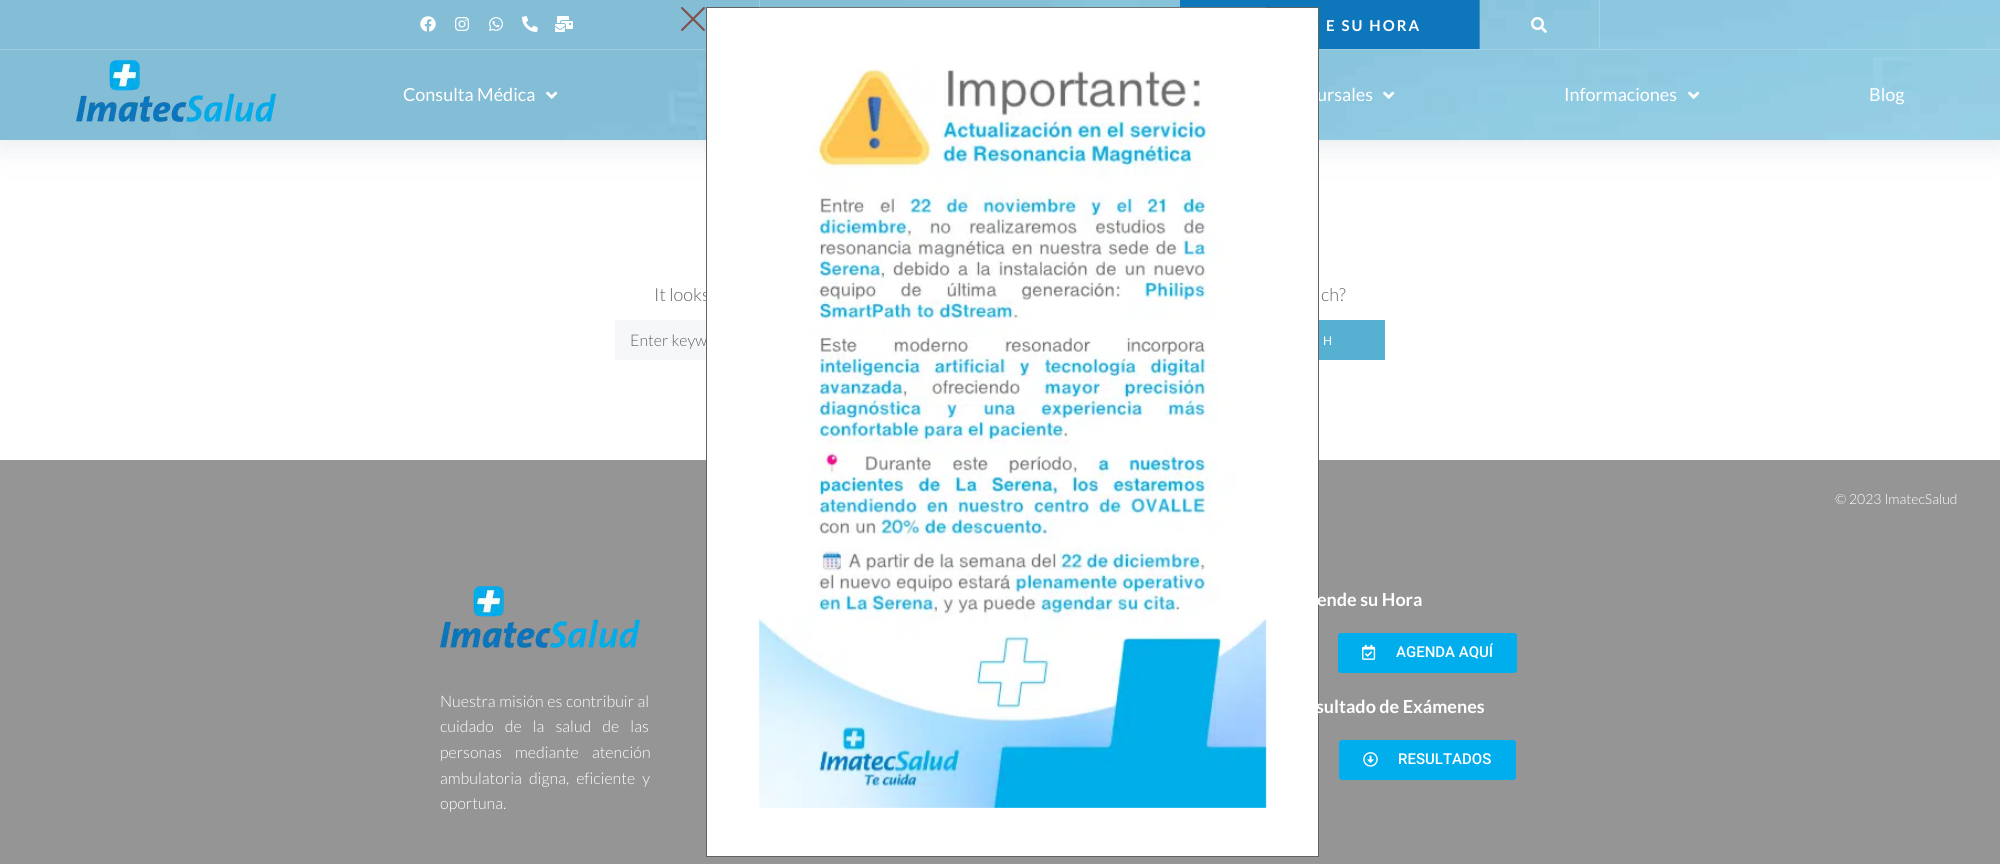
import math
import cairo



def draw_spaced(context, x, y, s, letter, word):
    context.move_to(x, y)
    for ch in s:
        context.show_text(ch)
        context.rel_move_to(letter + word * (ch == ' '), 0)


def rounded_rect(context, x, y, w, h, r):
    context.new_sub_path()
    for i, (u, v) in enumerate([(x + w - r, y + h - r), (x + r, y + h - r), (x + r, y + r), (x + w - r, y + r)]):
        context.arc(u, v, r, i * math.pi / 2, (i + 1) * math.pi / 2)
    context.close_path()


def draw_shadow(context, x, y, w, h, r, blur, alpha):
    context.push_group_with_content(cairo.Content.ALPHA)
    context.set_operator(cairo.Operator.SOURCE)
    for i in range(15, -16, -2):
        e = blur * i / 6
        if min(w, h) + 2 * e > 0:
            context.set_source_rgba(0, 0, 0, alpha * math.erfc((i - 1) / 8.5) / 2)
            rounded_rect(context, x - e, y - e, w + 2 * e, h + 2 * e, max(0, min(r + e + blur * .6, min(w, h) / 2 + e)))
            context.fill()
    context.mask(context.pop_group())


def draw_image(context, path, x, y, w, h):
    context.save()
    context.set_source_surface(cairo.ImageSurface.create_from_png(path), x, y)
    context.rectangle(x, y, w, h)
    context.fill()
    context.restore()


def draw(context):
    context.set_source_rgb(1, 1, 1)
    context.paint()
    context.set_source_rgb(103 / 255, 122 / 255, 141 / 255)
    draw_shadow(context, 0, 5, 2000, 140, 0, 16, 0.17)
    draw_image(context, "images/3.png", 0, 0, 2000, 140)
    draw_image(context, "images/1.png", 681, 7, 24, 24)
    context.set_source_rgba(1, 1, 1, 0.2)
    context.rectangle(0, 49, 2000, 1)
    context.fill()
    context.set_source_rgb(156 / 255, 202 / 255, 223 / 255)
    context.rectangle(759, 0, 1, 7)
    context.fill()
    draw_image(context, "images/4.png", 420, 16, 16, 16)
    draw_image(context, "images/5.png", 455, 17, 14, 14)
    draw_image(context, "images/6.png", 489, 17, 14, 14)
    draw_image(context, "images/7.png", 522, 16, 16, 16)
    draw_image(context, "images/8.png", 555, 16, 18, 16)
    context.set_source_rgb(14 / 255, 118 / 255, 187 / 255)
    context.rectangle(1180, 0, 299, 49)
    context.fill()
    context.set_source_rgb(62 / 255, 145 / 255, 201 / 255)
    context.rectangle(1479, 0, 1, 49)
    context.fill()
    context.set_source_rgb(163 / 255, 210 / 255, 230 / 255)
    context.rectangle(1599, 0, 1, 49)
    context.fill()
    draw_image(context, "images/9.png", 1531, 17, 16, 16)
    draw_image(context, "images/10.png", 76, 60, 200, 62)
    draw_image(context, "images/11.png", 546, 91, 12, 8)
    draw_image(context, "images/12.png", 1383, 91, 12, 8)
    draw_image(context, "images/13.png", 1688, 91, 12, 8)
    context.set_source_rgb(246 / 255, 247 / 255, 248 / 255)
    context.rectangle(615, 320, 91, 40)
    context.fill()
    context.set_source_rgb(86 / 255, 176 / 255, 210 / 255)
    context.rectangle(1319, 320, 66, 40)
    context.fill()
    context.set_source_rgb(149 / 255, 149 / 255, 149 / 255)
    context.rectangle(0, 460, 2000, 404)
    context.fill()
    draw_image(context, "images/14.png", 440, 586, 200, 62)
    context.set_source_rgb(0, 173 / 255, 237 / 255)
    rounded_rect(context, 1338, 633, 179, 40, 3)
    context.fill()
    draw_image(context, "images/15.png", 1362, 644, 14, 16)
    rounded_rect(context, 1339, 740, 177, 40, 3)
    context.fill()
    draw_image(context, "images/16.png", 1363, 752, 15, 15)
    context.select_font_face("Lato", cairo.FontSlant.NORMAL, cairo.FontWeight.BOLD)
    context.set_font_size(15)
    context.set_source_rgb(1, 1, 1)
    draw_spaced(context, 1326, 31, "E SU HORA", 2, 0)
    context.select_font_face("Lato")
    context.set_font_size(18)
    context.move_to(403, 101)
    context.show_text("Consulta Médica")
    context.move_to(1317, 101)
    context.show_text("ursales")
    context.move_to(1564, 101)
    context.show_text("Informaciones")
    context.move_to(1869, 101)
    context.show_text("Blog")
    context.select_font_face("Lato Light")
    context.set_source_rgb(97 / 255, 98 / 255, 98 / 255)
    context.move_to(654, 301)
    context.show_text("It looks")
    context.move_to(1321, 301)
    context.show_text("ch?")
    context.set_font_size(16)
    context.move_to(630, 346)
    context.show_text("Enter keyw")
    context.set_source_rgb(1, 1, 1)
    context.rectangle(706.5, 7.5, 612, 849)
    context.fill_preserve()
    context.set_source_rgb(97 / 255, 98 / 255, 98 / 255)
    context.set_line_width(1)
    context.stroke()
    draw_image(context, "images/2.png", 758, 7, 509, 801)
    context.select_font_face("Lato")
    context.set_font_size(12)
    context.set_source_rgb(1, 1, 1)
    draw_spaced(context, 1323, 345, "H", 2, 0)
    context.select_font_face("Lato Light")
    context.set_font_size(14)
    context.move_to(1835, 504)
    context.show_text("© 2023 ImatecSalud")
    context.set_font_size(16)
    draw_spaced(context, 440, 707, "Nuestra misión es contribuir al", 0, 0.5)
    draw_spaced(context, 440, 732, "cuidado de la salud de las", 0, 8)
    draw_spaced(context, 440, 758, "personas mediante atención", 0, 10)
    draw_spaced(context, 440, 784, "ambulatoria digna, eficiente y", 0, 4)
    context.move_to(440, 809)
    context.show_text("oportuna.")
    context.select_font_face("Lato", cairo.FontSlant.NORMAL, cairo.FontWeight.BOLD)
    context.set_font_size(18)
    context.move_to(1317, 606)
    context.show_text("ende su Hora")
    context.select_font_face("Roboto Medium")
    context.set_font_size(15)
    context.move_to(1396, 657)
    context.show_text("AGENDA AQUÍ")
    context.select_font_face("Lato", cairo.FontSlant.NORMAL, cairo.FontWeight.BOLD)
    context.set_font_size(18)
    context.move_to(1316, 713)
    context.show_text("sultado de Exámenes")
    context.select_font_face("Roboto Medium")
    context.set_font_size(15)
    context.move_to(1398, 764)
    context.show_text("RESULTADOS")


surface = cairo.ImageSurface(cairo.Format.RGB24, 2000, 864)
context = cairo.Context(surface)
options = cairo.FontOptions()
options.set_hint_metrics(cairo.HintMetrics.OFF)
options.set_hint_style(cairo.HintStyle.NONE)
context.set_font_options(options)
context.set_miter_limit(4)
draw(context)
surface.write_to_png("out.png")
